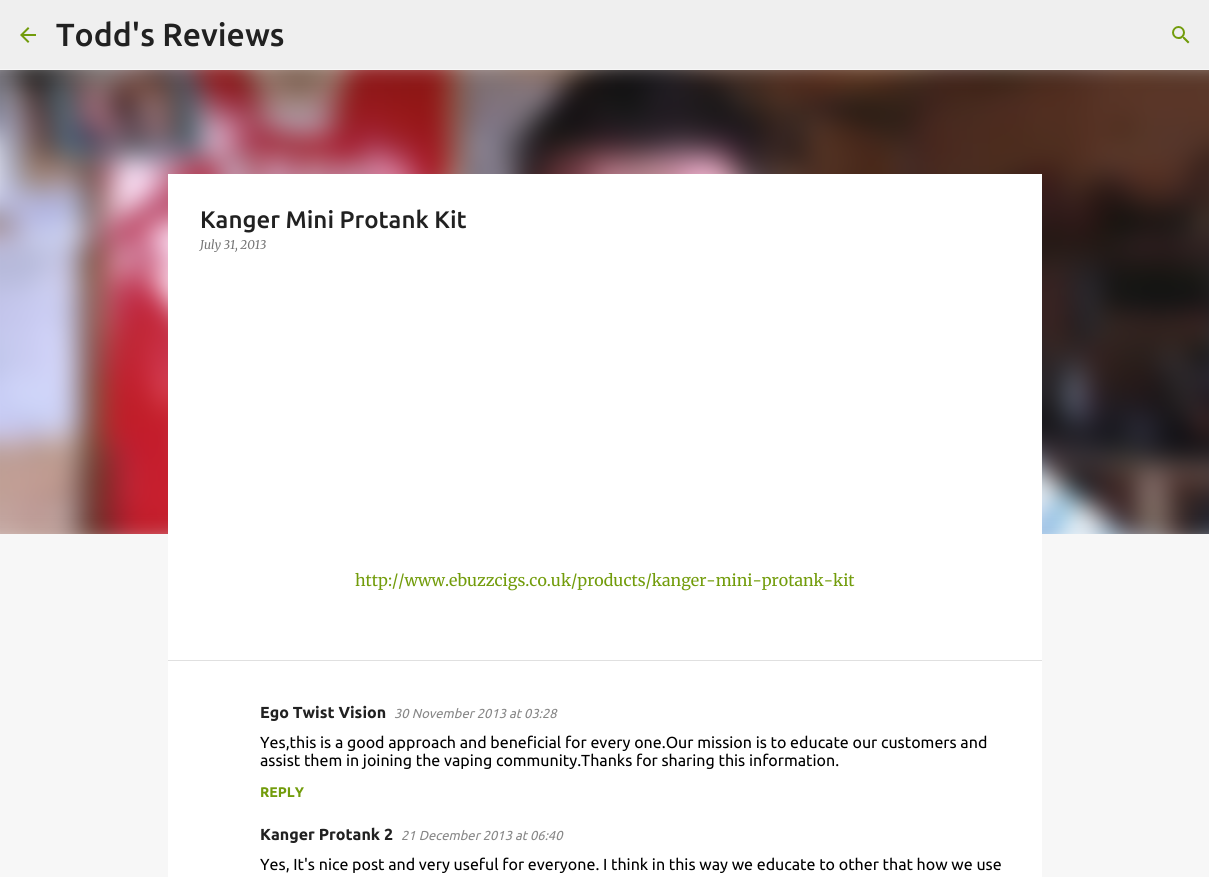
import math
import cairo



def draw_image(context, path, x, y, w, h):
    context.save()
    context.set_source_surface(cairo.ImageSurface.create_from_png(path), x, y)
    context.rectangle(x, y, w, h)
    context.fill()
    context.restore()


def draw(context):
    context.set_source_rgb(247 / 255, 247 / 255, 247 / 255)
    context.paint()
    context.set_source_rgb(239 / 255, 239 / 255, 239 / 255)
    context.rectangle(0, 0, 1209, 69)
    context.fill()
    draw_image(context, "images/1.png", 20, 27, 16, 16)
    draw_image(context, "images/2.png", 1172, 26, 18, 18)
    draw_image(context, "images/3.png", 0, 70, 1209, 464)
    context.set_source_rgb(1, 1, 1)
    context.rectangle(168, 174, 874, 486)
    context.fill()
    context.rectangle(168, 661, 874, 216)
    context.fill()
    context.set_source_rgb(224 / 255, 224 / 255, 224 / 255)
    context.rectangle(168, 660, 874, 1)
    context.fill()
    context.select_font_face("Ubuntu Medium")
    context.set_font_size(32)
    context.set_source_rgb(33 / 255, 33 / 255, 33 / 255)
    context.move_to(56, 46)
    context.show_text("Todd's Reviews")
    context.set_font_size(24)
    context.move_to(200, 228)
    context.show_text("Kanger Mini Protank Kit")
    context.select_font_face("Merriweather", cairo.FontSlant.ITALIC)
    context.set_font_size(12)
    context.set_source_rgb(117 / 255, 117 / 255, 117 / 255)
    context.move_to(200, 249)
    context.show_text("July 31, 2013")
    context.select_font_face("Merriweather Light")
    context.set_font_size(16)
    context.set_source_rgb(114 / 255, 156 / 255, 11 / 255)
    context.move_to(355, 586)
    context.show_text("http://www.ebuzzcigs.co.uk/products/kanger-mini-protank-kit")
    context.select_font_face("Ubuntu", cairo.FontSlant.NORMAL, cairo.FontWeight.BOLD)
    context.set_source_rgb(33 / 255, 33 / 255, 33 / 255)
    context.move_to(260, 718)
    context.show_text("Ego Twist Vision")
    context.select_font_face("Ubuntu", cairo.FontSlant.ITALIC)
    context.set_font_size(13)
    context.set_source_rgb(135 / 255, 135 / 255, 135 / 255)
    context.move_to(394, 718)
    context.show_text("30 November 2013 at 03:28")
    context.select_font_face("Ubuntu")
    context.set_font_size(16)
    context.set_source_rgb(0, 0, 0)
    context.move_to(260, 748)
    context.show_text("Yes,this is a good approach and beneficial for every one.Our mission is to educate our customers and")
    context.move_to(260, 766)
    context.show_text("assist them in joining the vaping community.Thanks for sharing this information.")
    context.select_font_face("Ubuntu", cairo.FontSlant.NORMAL, cairo.FontWeight.BOLD)
    context.set_font_size(14)
    context.set_source_rgb(114 / 255, 156 / 255, 11 / 255)
    context.move_to(260, 797)
    context.show_text("REPLY")
    context.set_font_size(16)
    context.set_source_rgb(33 / 255, 33 / 255, 33 / 255)
    context.move_to(260, 840)
    context.show_text("Kanger Protank 2")
    context.select_font_face("Ubuntu", cairo.FontSlant.ITALIC)
    context.set_font_size(13)
    context.set_source_rgb(135 / 255, 135 / 255, 135 / 255)
    context.move_to(401, 840)
    context.show_text("21 December 2013 at 06:40")
    context.select_font_face("Ubuntu")
    context.set_font_size(16)
    context.set_source_rgb(0, 0, 0)
    context.move_to(260, 870)
    context.show_text("Yes, It's nice post and very useful for everyone. I think in this way we educate to other that how we use")


surface = cairo.ImageSurface(cairo.Format.RGB24, 1209, 877)
context = cairo.Context(surface)
options = cairo.FontOptions()
options.set_hint_metrics(cairo.HintMetrics.OFF)
options.set_hint_style(cairo.HintStyle.NONE)
context.set_font_options(options)
context.set_miter_limit(4)
draw(context)
surface.write_to_png("out.png")
